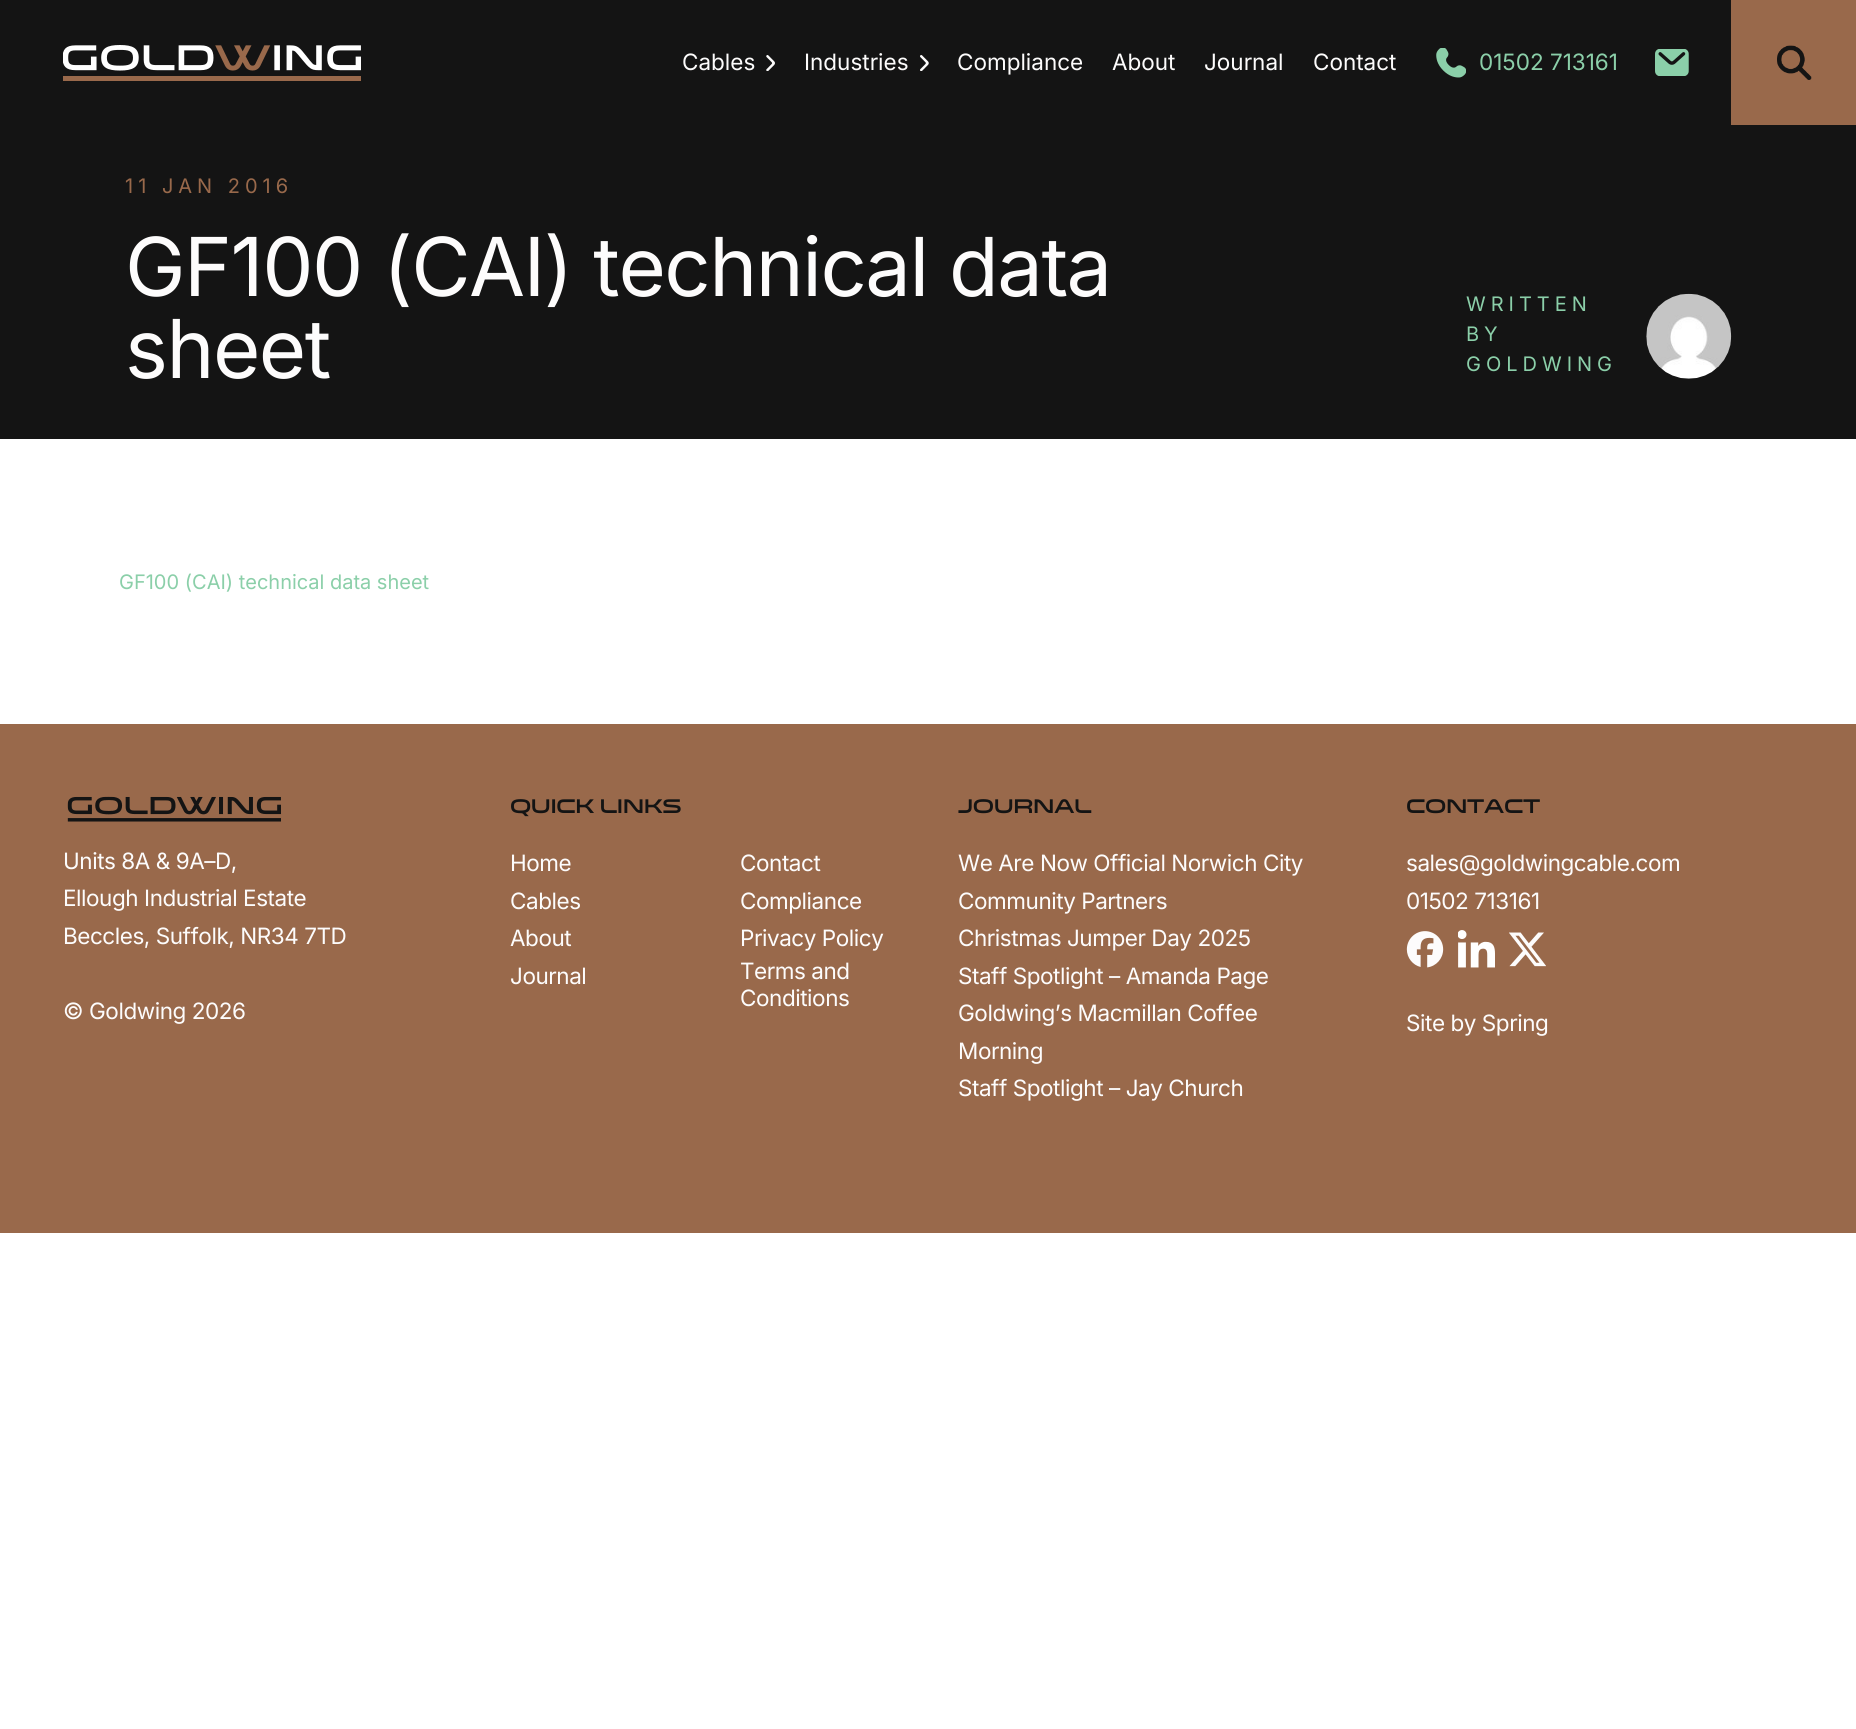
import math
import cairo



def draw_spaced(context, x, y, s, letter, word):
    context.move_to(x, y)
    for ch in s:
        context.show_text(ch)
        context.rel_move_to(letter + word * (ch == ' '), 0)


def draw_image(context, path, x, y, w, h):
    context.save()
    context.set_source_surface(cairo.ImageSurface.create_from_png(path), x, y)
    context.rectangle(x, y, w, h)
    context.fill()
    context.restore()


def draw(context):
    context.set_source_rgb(1, 1, 1)
    context.paint()
    context.set_source_rgb(20 / 255, 20 / 255, 20 / 255)
    context.rectangle(0, 0, 1731, 125)
    context.fill()
    draw_image(context, "images/1.png", 63, 45, 298, 36)
    draw_image(context, "images/2.png", 766, 55, 9, 16)
    draw_image(context, "images/3.png", 920, 55, 9, 16)
    draw_image(context, "images/4.png", 1436, 48, 30, 30)
    draw_image(context, "images/5.png", 1655, 49, 34, 27)
    context.set_source_rgb(153 / 255, 105 / 255, 75 / 255)
    context.rectangle(1731, 0, 125, 125)
    context.fill()
    draw_image(context, "images/6.png", 1777, 45, 35, 35)
    context.set_source_rgb(20 / 255, 20 / 255, 20 / 255)
    context.rectangle(0, 125, 1856, 314)
    context.fill()
    draw_image(context, "images/7.png", 1646, 293, 86, 86)
    context.set_source_rgb(153 / 255, 105 / 255, 75 / 255)
    context.rectangle(0, 724, 1856, 509)
    context.fill()
    draw_image(context, "images/8.png", 67, 796, 214, 26)
    draw_image(context, "images/9.png", 1406, 931, 38, 37)
    draw_image(context, "images/10.png", 1458, 930, 37, 38)
    draw_image(context, "images/11.png", 1509, 932, 37, 35)
    context.select_font_face("Inter")
    context.set_font_size(22.5)
    context.set_source_rgb(253 / 255, 252 / 255, 252 / 255)
    context.move_to(682, 70)
    context.show_text("Cables")
    context.move_to(804, 70)
    context.show_text("Industries")
    context.move_to(957, 70)
    context.show_text("Compliance")
    context.move_to(1112, 70)
    context.show_text("About")
    context.move_to(1204, 70)
    context.show_text("Journal")
    context.move_to(1313, 70)
    context.show_text("Contact")
    context.set_source_rgb(139 / 255, 207 / 255, 169 / 255)
    context.move_to(1479, 70)
    context.show_text("01502 713161")
    context.set_font_size(20)
    context.set_source_rgb(153 / 255, 105 / 255, 75 / 255)
    draw_spaced(context, 125, 193, "11 JAN 2016", 5, 0)
    context.set_font_size(81.25)
    context.set_source_rgb(253 / 255, 252 / 255, 252 / 255)
    draw_spaced(context, 125, 296, "GF100 (CAI) technical data", -1.5, 0)
    draw_spaced(context, 125, 378, "sheet", -1.5, 0)
    context.set_font_size(20)
    context.set_source_rgb(139 / 255, 207 / 255, 169 / 255)
    draw_spaced(context, 1466, 311, "WRITTEN", 5, 0)
    draw_spaced(context, 1466, 341, "BY", 5, 0)
    draw_spaced(context, 1466, 371, "GOLDWING", 5, 0)
    context.move_to(119, 589)
    context.show_text("GF100 (CAI) technical data sheet")
    context.set_font_size(22.5)
    context.set_source_rgb(253 / 255, 252 / 255, 252 / 255)
    draw_spaced(context, 63, 869, "Units 8A & 9A–D,", -0.45, 0)
    draw_spaced(context, 63, 906, "Ellough Industrial Estate", -0.45, 0)
    draw_spaced(context, 63, 944, "Beccles, Suffolk, NR34 7TD", -0.45, 0)
    draw_spaced(context, 63, 1019, "© Goldwing 2026", -0.45, 0)
    context.select_font_face("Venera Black")
    context.set_font_size(20)
    context.set_source_rgb(20 / 255, 20 / 255, 20 / 255)
    draw_spaced(context, 510, 813, "Quick Links", -0.4, 0)
    context.select_font_face("Inter")
    context.set_font_size(22.5)
    context.set_source_rgb(253 / 255, 252 / 255, 252 / 255)
    draw_spaced(context, 510, 871, "Home", -0.45, 0)
    draw_spaced(context, 740, 871, "Contact", -0.45, 0)
    draw_spaced(context, 510, 909, "Cables", -0.45, 0)
    draw_spaced(context, 740, 909, "Compliance", -0.45, 0)
    draw_spaced(context, 510, 946, "About", -0.45, 0)
    draw_spaced(context, 740, 946, "Privacy Policy", -0.45, 0)
    draw_spaced(context, 510, 984, "Journal", -0.45, 0)
    draw_spaced(context, 740, 979, "Terms and", -0.45, 0)
    draw_spaced(context, 740, 1006, "Conditions", -0.45, 0)
    context.select_font_face("Venera Black")
    context.set_font_size(20)
    context.set_source_rgb(20 / 255, 20 / 255, 20 / 255)
    draw_spaced(context, 958, 813, "Journal", -0.4, 0)
    context.select_font_face("Inter")
    context.set_font_size(22.5)
    context.set_source_rgb(253 / 255, 252 / 255, 252 / 255)
    draw_spaced(context, 958, 871, "We Are Now Official Norwich City", -0.45, 0)
    draw_spaced(context, 958, 909, "Community Partners", -0.45, 0)
    draw_spaced(context, 958, 946, "Christmas Jumper Day 2025", -0.45, 0)
    draw_spaced(context, 958, 984, "Staff Spotlight – Amanda Page", -0.45, 0)
    draw_spaced(context, 958, 1021, "Goldwing’s Macmillan Coffee", -0.45, 0)
    draw_spaced(context, 958, 1059, "Morning", -0.45, 0)
    draw_spaced(context, 958, 1096, "Staff Spotlight – Jay Church", -0.45, 0)
    context.select_font_face("Venera Black")
    context.set_font_size(20)
    context.set_source_rgb(20 / 255, 20 / 255, 20 / 255)
    draw_spaced(context, 1406, 813, "Contact", -0.4, 0)
    context.select_font_face("Inter")
    context.set_font_size(22.5)
    context.set_source_rgb(253 / 255, 252 / 255, 252 / 255)
    draw_spaced(context, 1406, 871, "sales@goldwingcable.com", -0.45, 0)
    draw_spaced(context, 1406, 909, "01502 713161", -0.45, 0)
    draw_spaced(context, 1406, 1031, "Site by Spring", -0.45, 0)


surface = cairo.ImageSurface(cairo.Format.RGB24, 1856, 1729)
context = cairo.Context(surface)
options = cairo.FontOptions()
options.set_hint_metrics(cairo.HintMetrics.OFF)
options.set_hint_style(cairo.HintStyle.NONE)
context.set_font_options(options)
context.set_miter_limit(4)
draw(context)
surface.write_to_png("out.png")
